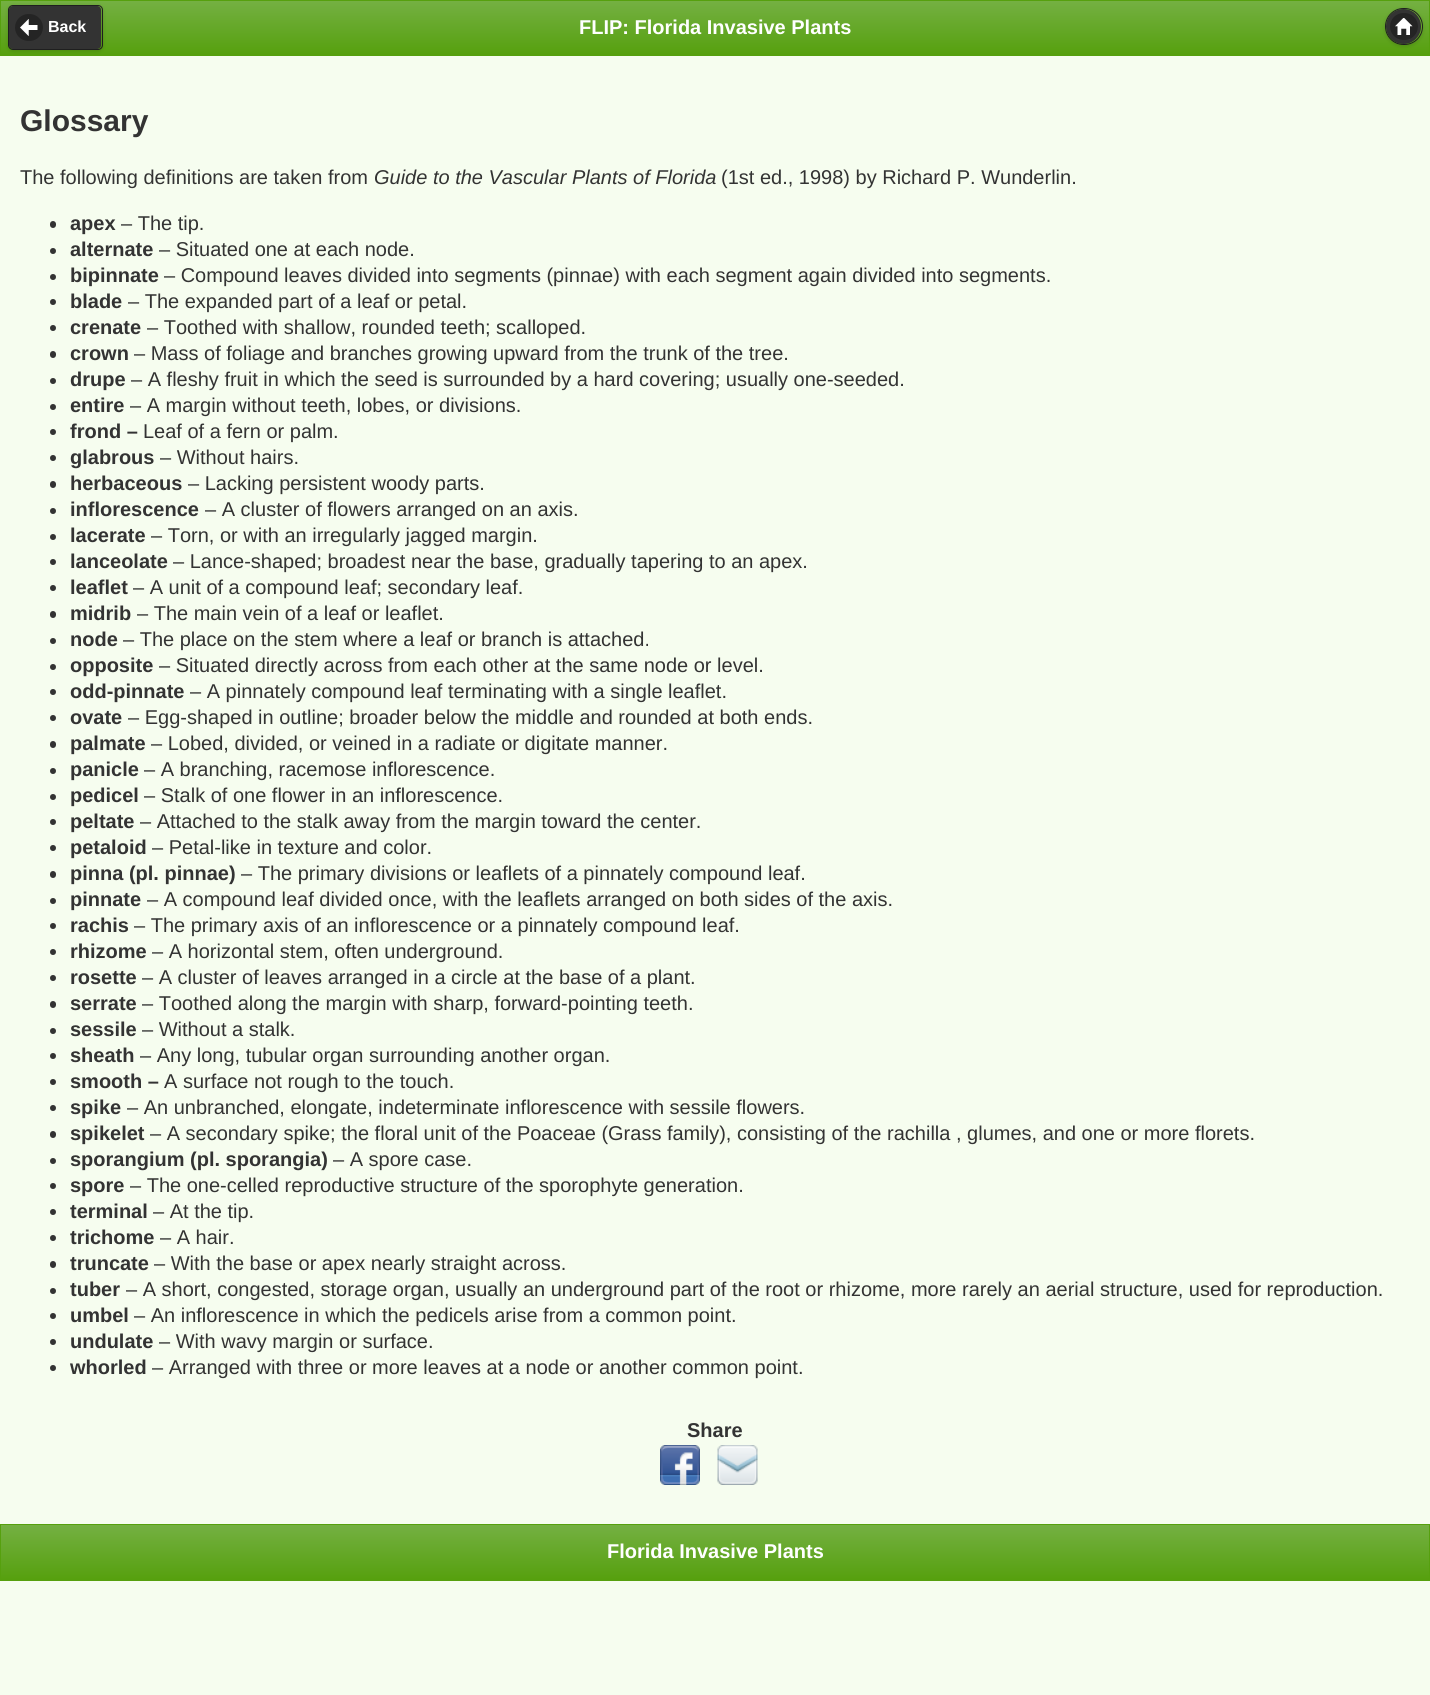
import math
import cairo



def rounded_rect(context, x, y, w, h, r):
    context.new_sub_path()
    for i, (u, v) in enumerate([(x + w - r, y + h - r), (x + r, y + h - r), (x + r, y + r), (x + w - r, y + r)]):
        context.arc(u, v, r, i * math.pi / 2, (i + 1) * math.pi / 2)
    context.close_path()


def draw_shadow(context, x, y, w, h, r, blur, alpha):
    context.push_group_with_content(cairo.Content.ALPHA)
    context.set_operator(cairo.Operator.SOURCE)
    for i in range(15, -16, -2):
        e = blur * i / 6
        if min(w, h) + 2 * e > 0:
            context.set_source_rgba(0, 0, 0, alpha * math.erfc((i - 1) / 8.5) / 2)
            rounded_rect(context, x - e, y - e, w + 2 * e, h + 2 * e, max(0, min(r + e + blur * .6, min(w, h) / 2 + e)))
            context.fill()
    context.mask(context.pop_group())


def draw_image(context, path, x, y, w, h):
    context.save()
    context.set_source_surface(cairo.ImageSurface.create_from_png(path), x, y)
    context.rectangle(x, y, w, h)
    context.fill()
    context.restore()


def draw(context):
    context.set_source_rgb(246 / 255, 253 / 255, 239 / 255)
    context.paint()
    gradient = cairo.LinearGradient(715, 1.2, 715, 55)
    gradient.add_color_stop_rgba(0, 116 / 255, 176 / 255, 66 / 255, 1)
    gradient.add_color_stop_rgba(1, 86 / 255, 160 / 255, 14 / 255, 1)
    context.set_source(gradient)
    context.rectangle(1, 1, 1428, 54)
    context.fill()
    context.rectangle(0.5, 0.5, 1429, 55)
    context.set_source_rgb(86 / 255, 160 / 255, 14 / 255)
    context.set_line_width(1)
    context.stroke()
    context.set_source_rgb(0, 0, 0)
    draw_shadow(context, 8, 6, 95, 45, 5, 2, 0.15)
    context.set_source_rgb(51 / 255, 51 / 255, 51 / 255)
    rounded_rect(context, 9, 6, 92, 43, 4)
    context.fill()
    rounded_rect(context, 8.5, 5.5, 94, 44, 4.5)
    context.set_source_rgb(31 / 255, 31 / 255, 31 / 255)
    context.stroke()
    context.set_source_rgb(36 / 255, 36 / 255, 36 / 255)
    rounded_rect(context, 15, 14, 28, 27, 13.5)
    context.fill()
    draw_image(context, "images/1.png", 20, 19, 18, 17)
    context.save()
    context.set_fill_rule(cairo.FillRule.EVEN_ODD)
    context.new_path()
    context.move_to(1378, 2)
    context.line_to(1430, 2)
    context.line_to(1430, 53)
    context.line_to(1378, 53)
    context.close_path()
    context.move_to(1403.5, 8)
    context.line_to(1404.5, 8)
    context.curve_to(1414.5, 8, 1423, 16.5, 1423, 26.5)
    context.curve_to(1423, 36.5, 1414.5, 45, 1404.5, 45)
    context.line_to(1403.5, 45)
    context.curve_to(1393.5, 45, 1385, 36.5, 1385, 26.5)
    context.curve_to(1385, 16.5, 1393.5, 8, 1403.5, 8)
    context.close_path()
    context.clip()
    context.set_source_rgb(0, 0, 0)
    draw_shadow(context, 1385, 9, 38, 37, 18.5, 2, 0.15)
    context.restore()
    context.set_source_rgb(51 / 255, 51 / 255, 51 / 255)
    context.arc(1403.5, 26.5, 17.5, 0, 2 * math.pi)
    context.fill()
    rounded_rect(context, 1385.5, 8.5, 37, 36, 18)
    context.set_source_rgb(31 / 255, 31 / 255, 31 / 255)
    context.stroke()
    context.set_source_rgb(36 / 255, 36 / 255, 36 / 255)
    rounded_rect(context, 1390, 13, 28, 27, 13.5)
    context.fill()
    draw_image(context, "images/2.png", 1395, 18, 18, 17)
    context.set_source_rgb(51 / 255, 51 / 255, 51 / 255)
    rounded_rect(context, 50, 221, 6, 7, 3)
    context.fill()
    context.arc(53, 251, 3, 0, 2 * math.pi)
    context.fill()
    context.arc(53, 277, 3, 0, 2 * math.pi)
    context.fill()
    context.arc(53, 302, 3, 0, 2 * math.pi)
    context.fill()
    context.arc(53, 328, 3, 0, 2 * math.pi)
    context.fill()
    rounded_rect(context, 50, 351, 6, 7, 3)
    context.fill()
    context.arc(53, 381, 3, 0, 2 * math.pi)
    context.fill()
    context.arc(53, 407, 3, 0, 2 * math.pi)
    context.fill()
    context.arc(53, 432, 3, 0, 2 * math.pi)
    context.fill()
    context.arc(53, 458, 3, 0, 2 * math.pi)
    context.fill()
    rounded_rect(context, 50, 481, 6, 7, 3)
    context.fill()
    context.arc(53, 511, 3, 0, 2 * math.pi)
    context.fill()
    context.arc(53, 537, 3, 0, 2 * math.pi)
    context.fill()
    context.arc(53, 562, 3, 0, 2 * math.pi)
    context.fill()
    context.arc(53, 588, 3, 0, 2 * math.pi)
    context.fill()
    rounded_rect(context, 50, 611, 6, 7, 3)
    context.fill()
    context.arc(53, 641, 3, 0, 2 * math.pi)
    context.fill()
    context.arc(53, 667, 3, 0, 2 * math.pi)
    context.fill()
    context.arc(53, 692, 3, 0, 2 * math.pi)
    context.fill()
    context.arc(53, 718, 3, 0, 2 * math.pi)
    context.fill()
    rounded_rect(context, 50, 741, 6, 7, 3)
    context.fill()
    context.arc(53, 771, 3, 0, 2 * math.pi)
    context.fill()
    context.arc(53, 797, 3, 0, 2 * math.pi)
    context.fill()
    context.arc(53, 822, 3, 0, 2 * math.pi)
    context.fill()
    context.arc(53, 848, 3, 0, 2 * math.pi)
    context.fill()
    rounded_rect(context, 50, 871, 6, 7, 3)
    context.fill()
    context.arc(53, 901, 3, 0, 2 * math.pi)
    context.fill()
    context.arc(53, 926, 3, 0, 2 * math.pi)
    context.fill()
    context.arc(53, 952, 3, 0, 2 * math.pi)
    context.fill()
    context.arc(53, 978, 3, 0, 2 * math.pi)
    context.fill()
    rounded_rect(context, 50, 1001, 6, 7, 3)
    context.fill()
    context.arc(53, 1031, 3, 0, 2 * math.pi)
    context.fill()
    context.arc(53, 1056, 3, 0, 2 * math.pi)
    context.fill()
    context.arc(53, 1082, 3, 0, 2 * math.pi)
    context.fill()
    context.arc(53, 1108, 3, 0, 2 * math.pi)
    context.fill()
    rounded_rect(context, 50, 1131, 6, 7, 3)
    context.fill()
    context.arc(53, 1161, 3, 0, 2 * math.pi)
    context.fill()
    context.arc(53, 1186, 3, 0, 2 * math.pi)
    context.fill()
    context.arc(53, 1212, 3, 0, 2 * math.pi)
    context.fill()
    context.arc(53, 1238, 3, 0, 2 * math.pi)
    context.fill()
    rounded_rect(context, 50, 1261, 6, 7, 3)
    context.fill()
    context.arc(53, 1291, 3, 0, 2 * math.pi)
    context.fill()
    context.arc(53, 1316, 3, 0, 2 * math.pi)
    context.fill()
    context.arc(53, 1342, 3, 0, 2 * math.pi)
    context.fill()
    context.arc(53, 1368, 3, 0, 2 * math.pi)
    context.fill()
    draw_image(context, "images/3.png", 660, 1445, 40, 40)
    draw_image(context, "images/4.png", 717, 1445, 41, 40)
    gradient = cairo.LinearGradient(715, 1525, 715, 1580)
    gradient.add_color_stop_rgba(0, 116 / 255, 176 / 255, 66 / 255, 1)
    gradient.add_color_stop_rgba(1, 86 / 255, 160 / 255, 14 / 255, 1)
    context.set_source(gradient)
    context.rectangle(1, 1525, 1428, 55)
    context.fill()
    context.rectangle(0.5, 1524.5, 1429, 56)
    context.set_source_rgb(86 / 255, 160 / 255, 14 / 255)
    context.stroke()
    context.select_font_face("Liberation Sans", cairo.FontSlant.NORMAL, cairo.FontWeight.BOLD)
    context.set_font_size(16)
    context.set_source_rgb(1, 1, 1)
    context.move_to(48, 32)
    context.show_text("Back")
    context.set_font_size(20)
    context.move_to(579, 34)
    context.show_text("FLIP: Florida Invasive Plants")
    context.set_font_size(30)
    context.set_source_rgb(51 / 255, 51 / 255, 51 / 255)
    context.move_to(20, 131)
    context.show_text("Glossary")
    context.select_font_face("Liberation Sans")
    context.set_font_size(20)
    context.move_to(20, 184)
    context.show_text("The following definitions are taken from")
    context.select_font_face("Liberation Sans", cairo.FontSlant.ITALIC)
    context.move_to(374, 184)
    context.show_text("Guide to the Vascular Plants of Florida")
    context.select_font_face("Liberation Sans")
    context.move_to(721, 184)
    context.show_text("(1st ed., 1998) by Richard P. Wunderlin.")
    context.select_font_face("Liberation Sans", cairo.FontSlant.NORMAL, cairo.FontWeight.BOLD)
    context.move_to(70, 230)
    context.show_text("apex")
    context.select_font_face("Liberation Sans")
    context.move_to(121, 230)
    context.show_text("– The tip.")
    context.select_font_face("Liberation Sans", cairo.FontSlant.NORMAL, cairo.FontWeight.BOLD)
    context.move_to(70, 256)
    context.show_text("alternate")
    context.select_font_face("Liberation Sans")
    context.move_to(159, 256)
    context.show_text("– Situated one at each node.")
    context.select_font_face("Liberation Sans", cairo.FontSlant.NORMAL, cairo.FontWeight.BOLD)
    context.move_to(70, 282)
    context.show_text("bipinnate")
    context.select_font_face("Liberation Sans")
    context.move_to(164, 282)
    context.show_text("– Compound leaves divided into segments (pinnae) with each segment again divided into segments.")
    context.select_font_face("Liberation Sans", cairo.FontSlant.NORMAL, cairo.FontWeight.BOLD)
    context.move_to(70, 308)
    context.show_text("blade")
    context.select_font_face("Liberation Sans")
    context.move_to(128, 308)
    context.show_text("– The expanded part of a leaf or petal.")
    context.select_font_face("Liberation Sans", cairo.FontSlant.NORMAL, cairo.FontWeight.BOLD)
    context.move_to(70, 334)
    context.show_text("crenate")
    context.select_font_face("Liberation Sans")
    context.move_to(147, 334)
    context.show_text("– Toothed with shallow, rounded teeth; scalloped.")
    context.select_font_face("Liberation Sans", cairo.FontSlant.NORMAL, cairo.FontWeight.BOLD)
    context.move_to(70, 360)
    context.show_text("crown")
    context.select_font_face("Liberation Sans")
    context.move_to(134, 360)
    context.show_text("– Mass of foliage and branches growing upward from the trunk of the tree.")
    context.select_font_face("Liberation Sans", cairo.FontSlant.NORMAL, cairo.FontWeight.BOLD)
    context.move_to(70, 386)
    context.show_text("drupe")
    context.select_font_face("Liberation Sans")
    context.move_to(131, 386)
    context.show_text("– A fleshy fruit in which the seed is surrounded by a hard covering; usually one-seeded.")
    context.select_font_face("Liberation Sans", cairo.FontSlant.NORMAL, cairo.FontWeight.BOLD)
    context.move_to(70, 412)
    context.show_text("entire")
    context.select_font_face("Liberation Sans")
    context.move_to(130, 412)
    context.show_text("– A margin without teeth, lobes, or divisions.")
    context.select_font_face("Liberation Sans", cairo.FontSlant.NORMAL, cairo.FontWeight.BOLD)
    context.move_to(70, 438)
    context.show_text("frond –")
    context.select_font_face("Liberation Sans")
    context.move_to(143, 438)
    context.show_text("Leaf of a fern or palm.")
    context.select_font_face("Liberation Sans", cairo.FontSlant.NORMAL, cairo.FontWeight.BOLD)
    context.move_to(70, 464)
    context.show_text("glabrous")
    context.select_font_face("Liberation Sans")
    context.move_to(160, 464)
    context.show_text("– Without hairs.")
    context.select_font_face("Liberation Sans", cairo.FontSlant.NORMAL, cairo.FontWeight.BOLD)
    context.move_to(70, 490)
    context.show_text("herbaceous")
    context.select_font_face("Liberation Sans")
    context.move_to(188, 490)
    context.show_text("– Lacking persistent woody parts.")
    context.select_font_face("Liberation Sans", cairo.FontSlant.NORMAL, cairo.FontWeight.BOLD)
    context.move_to(70, 516)
    context.show_text("inflorescence")
    context.select_font_face("Liberation Sans")
    context.move_to(205, 516)
    context.show_text("– A cluster of flowers arranged on an axis.")
    context.select_font_face("Liberation Sans", cairo.FontSlant.NORMAL, cairo.FontWeight.BOLD)
    context.move_to(70, 542)
    context.show_text("lacerate")
    context.select_font_face("Liberation Sans")
    context.move_to(151, 542)
    context.show_text("– Torn, or with an irregularly jagged margin.")
    context.select_font_face("Liberation Sans", cairo.FontSlant.NORMAL, cairo.FontWeight.BOLD)
    context.move_to(70, 568)
    context.show_text("lanceolate")
    context.select_font_face("Liberation Sans")
    context.move_to(173, 568)
    context.show_text("– Lance-shaped; broadest near the base, gradually tapering to an apex.")
    context.select_font_face("Liberation Sans", cairo.FontSlant.NORMAL, cairo.FontWeight.BOLD)
    context.move_to(70, 594)
    context.show_text("leaflet")
    context.select_font_face("Liberation Sans")
    context.move_to(133, 594)
    context.show_text("– A unit of a compound leaf; secondary leaf.")
    context.select_font_face("Liberation Sans", cairo.FontSlant.NORMAL, cairo.FontWeight.BOLD)
    context.move_to(70, 620)
    context.show_text("midrib")
    context.select_font_face("Liberation Sans")
    context.move_to(137, 620)
    context.show_text("– The main vein of a leaf or leaflet.")
    context.select_font_face("Liberation Sans", cairo.FontSlant.NORMAL, cairo.FontWeight.BOLD)
    context.move_to(70, 646)
    context.show_text("node")
    context.select_font_face("Liberation Sans")
    context.move_to(123, 646)
    context.show_text("– The place on the stem where a leaf or branch is attached.")
    context.select_font_face("Liberation Sans", cairo.FontSlant.NORMAL, cairo.FontWeight.BOLD)
    context.move_to(70, 672)
    context.show_text("opposite")
    context.select_font_face("Liberation Sans")
    context.move_to(159, 672)
    context.show_text("– Situated directly across from each other at the same node or level.")
    context.select_font_face("Liberation Sans", cairo.FontSlant.NORMAL, cairo.FontWeight.BOLD)
    context.move_to(70, 698)
    context.show_text("odd-pinnate")
    context.select_font_face("Liberation Sans")
    context.move_to(190, 698)
    context.show_text("– A pinnately compound leaf terminating with a single leaflet.")
    context.select_font_face("Liberation Sans", cairo.FontSlant.NORMAL, cairo.FontWeight.BOLD)
    context.move_to(70, 724)
    context.show_text("ovate")
    context.select_font_face("Liberation Sans")
    context.move_to(128, 724)
    context.show_text("– Egg-shaped in outline; broader below the middle and rounded at both ends.")
    context.select_font_face("Liberation Sans", cairo.FontSlant.NORMAL, cairo.FontWeight.BOLD)
    context.move_to(70, 750)
    context.show_text("palmate")
    context.select_font_face("Liberation Sans")
    context.move_to(151, 750)
    context.show_text("– Lobed, divided, or veined in a radiate or digitate manner.")
    context.select_font_face("Liberation Sans", cairo.FontSlant.NORMAL, cairo.FontWeight.BOLD)
    context.move_to(70, 776)
    context.show_text("panicle")
    context.select_font_face("Liberation Sans")
    context.move_to(144, 776)
    context.show_text("– A branching, racemose inflorescence.")
    context.select_font_face("Liberation Sans", cairo.FontSlant.NORMAL, cairo.FontWeight.BOLD)
    context.move_to(70, 802)
    context.show_text("pedicel")
    context.select_font_face("Liberation Sans")
    context.move_to(144, 802)
    context.show_text("– Stalk of one flower in an inflorescence.")
    context.select_font_face("Liberation Sans", cairo.FontSlant.NORMAL, cairo.FontWeight.BOLD)
    context.move_to(70, 828)
    context.show_text("peltate")
    context.select_font_face("Liberation Sans")
    context.move_to(140, 828)
    context.show_text("– Attached to the stalk away from the margin toward the center.")
    context.select_font_face("Liberation Sans", cairo.FontSlant.NORMAL, cairo.FontWeight.BOLD)
    context.move_to(70, 854)
    context.show_text("petaloid")
    context.select_font_face("Liberation Sans")
    context.move_to(152, 854)
    context.show_text("– Petal-like in texture and color.")
    context.select_font_face("Liberation Sans", cairo.FontSlant.NORMAL, cairo.FontWeight.BOLD)
    context.move_to(70, 880)
    context.show_text("pinna (pl. pinnae)")
    context.select_font_face("Liberation Sans")
    context.move_to(241, 880)
    context.show_text("– The primary divisions or leaflets of a pinnately compound leaf.")
    context.select_font_face("Liberation Sans", cairo.FontSlant.NORMAL, cairo.FontWeight.BOLD)
    context.move_to(70, 906)
    context.show_text("pinnate")
    context.select_font_face("Liberation Sans")
    context.move_to(147, 906)
    context.show_text("– A compound leaf divided once, with the leaflets arranged on both sides of the axis.")
    context.select_font_face("Liberation Sans", cairo.FontSlant.NORMAL, cairo.FontWeight.BOLD)
    context.move_to(70, 932)
    context.show_text("rachis")
    context.select_font_face("Liberation Sans")
    context.move_to(134, 932)
    context.show_text("– The primary axis of an inflorescence or a pinnately compound leaf.")
    context.select_font_face("Liberation Sans", cairo.FontSlant.NORMAL, cairo.FontWeight.BOLD)
    context.move_to(70, 958)
    context.show_text("rhizome")
    context.select_font_face("Liberation Sans")
    context.move_to(152, 958)
    context.show_text("– A horizontal stem, often underground.")
    context.select_font_face("Liberation Sans", cairo.FontSlant.NORMAL, cairo.FontWeight.BOLD)
    context.move_to(70, 984)
    context.show_text("rosette")
    context.select_font_face("Liberation Sans")
    context.move_to(142, 984)
    context.show_text("– A cluster of leaves arranged in a circle at the base of a plant.")
    context.select_font_face("Liberation Sans", cairo.FontSlant.NORMAL, cairo.FontWeight.BOLD)
    context.move_to(70, 1010)
    context.show_text("serrate")
    context.select_font_face("Liberation Sans")
    context.move_to(142, 1010)
    context.show_text("– Toothed along the margin with sharp, forward-pointing teeth.")
    context.select_font_face("Liberation Sans", cairo.FontSlant.NORMAL, cairo.FontWeight.BOLD)
    context.move_to(70, 1036)
    context.show_text("sessile")
    context.select_font_face("Liberation Sans")
    context.move_to(142, 1036)
    context.show_text("– Without a stalk.")
    context.select_font_face("Liberation Sans", cairo.FontSlant.NORMAL, cairo.FontWeight.BOLD)
    context.move_to(70, 1062)
    context.show_text("sheath")
    context.select_font_face("Liberation Sans")
    context.move_to(140, 1062)
    context.show_text("– Any long, tubular organ surrounding another organ.")
    context.select_font_face("Liberation Sans", cairo.FontSlant.NORMAL, cairo.FontWeight.BOLD)
    context.move_to(70, 1088)
    context.show_text("smooth –")
    context.select_font_face("Liberation Sans")
    context.move_to(164, 1088)
    context.show_text("A surface not rough to the touch.")
    context.select_font_face("Liberation Sans", cairo.FontSlant.NORMAL, cairo.FontWeight.BOLD)
    context.move_to(70, 1114)
    context.show_text("spike")
    context.select_font_face("Liberation Sans")
    context.move_to(127, 1114)
    context.show_text("– An unbranched, elongate, indeterminate inflorescence with sessile flowers.")
    context.select_font_face("Liberation Sans", cairo.FontSlant.NORMAL, cairo.FontWeight.BOLD)
    context.move_to(70, 1140)
    context.show_text("spikelet")
    context.select_font_face("Liberation Sans")
    context.move_to(150, 1140)
    context.show_text("– A secondary spike; the floral unit of the Poaceae (Grass family), consisting of the rachilla , glumes, and one or more florets.")
    context.select_font_face("Liberation Sans", cairo.FontSlant.NORMAL, cairo.FontWeight.BOLD)
    context.move_to(70, 1166)
    context.show_text("sporangium (pl. sporangia)")
    context.select_font_face("Liberation Sans")
    context.move_to(333, 1166)
    context.show_text("– A spore case.")
    context.select_font_face("Liberation Sans", cairo.FontSlant.NORMAL, cairo.FontWeight.BOLD)
    context.move_to(70, 1192)
    context.show_text("spore")
    context.select_font_face("Liberation Sans")
    context.move_to(130, 1192)
    context.show_text("– The one-celled reproductive structure of the sporophyte generation.")
    context.select_font_face("Liberation Sans", cairo.FontSlant.NORMAL, cairo.FontWeight.BOLD)
    context.move_to(70, 1218)
    context.show_text("terminal")
    context.select_font_face("Liberation Sans")
    context.move_to(153, 1218)
    context.show_text("– At the tip.")
    context.select_font_face("Liberation Sans", cairo.FontSlant.NORMAL, cairo.FontWeight.BOLD)
    context.move_to(70, 1244)
    context.show_text("trichome")
    context.select_font_face("Liberation Sans")
    context.move_to(160, 1244)
    context.show_text("– A hair.")
    context.select_font_face("Liberation Sans", cairo.FontSlant.NORMAL, cairo.FontWeight.BOLD)
    context.move_to(70, 1270)
    context.show_text("truncate")
    context.select_font_face("Liberation Sans")
    context.move_to(154, 1270)
    context.show_text("– With the base or apex nearly straight across.")
    context.select_font_face("Liberation Sans", cairo.FontSlant.NORMAL, cairo.FontWeight.BOLD)
    context.move_to(70, 1296)
    context.show_text("tuber")
    context.select_font_face("Liberation Sans")
    context.move_to(126, 1296)
    context.show_text("– A short, congested, storage organ, usually an underground part of the root or rhizome, more rarely an aerial structure, used for reproduction.")
    context.select_font_face("Liberation Sans", cairo.FontSlant.NORMAL, cairo.FontWeight.BOLD)
    context.move_to(70, 1322)
    context.show_text("umbel")
    context.select_font_face("Liberation Sans")
    context.move_to(134, 1322)
    context.show_text("– An inflorescence in which the pedicels arise from a common point.")
    context.select_font_face("Liberation Sans", cairo.FontSlant.NORMAL, cairo.FontWeight.BOLD)
    context.move_to(70, 1348)
    context.show_text("undulate")
    context.select_font_face("Liberation Sans")
    context.move_to(159, 1348)
    context.show_text("– With wavy margin or surface.")
    context.select_font_face("Liberation Sans", cairo.FontSlant.NORMAL, cairo.FontWeight.BOLD)
    context.move_to(70, 1374)
    context.show_text("whorled")
    context.select_font_face("Liberation Sans")
    context.move_to(152, 1374)
    context.show_text("– Arranged with three or more leaves at a node or another common point.")
    context.select_font_face("Liberation Sans", cairo.FontSlant.NORMAL, cairo.FontWeight.BOLD)
    context.move_to(687, 1437)
    context.show_text("Share")
    context.set_source_rgb(1, 1, 1)
    context.move_to(607, 1558)
    context.show_text("Florida Invasive Plants")


surface = cairo.ImageSurface(cairo.Format.RGB24, 1430, 1695)
context = cairo.Context(surface)
options = cairo.FontOptions()
options.set_hint_metrics(cairo.HintMetrics.OFF)
options.set_hint_style(cairo.HintStyle.NONE)
context.set_font_options(options)
context.set_miter_limit(4)
draw(context)
surface.write_to_png("out.png")
